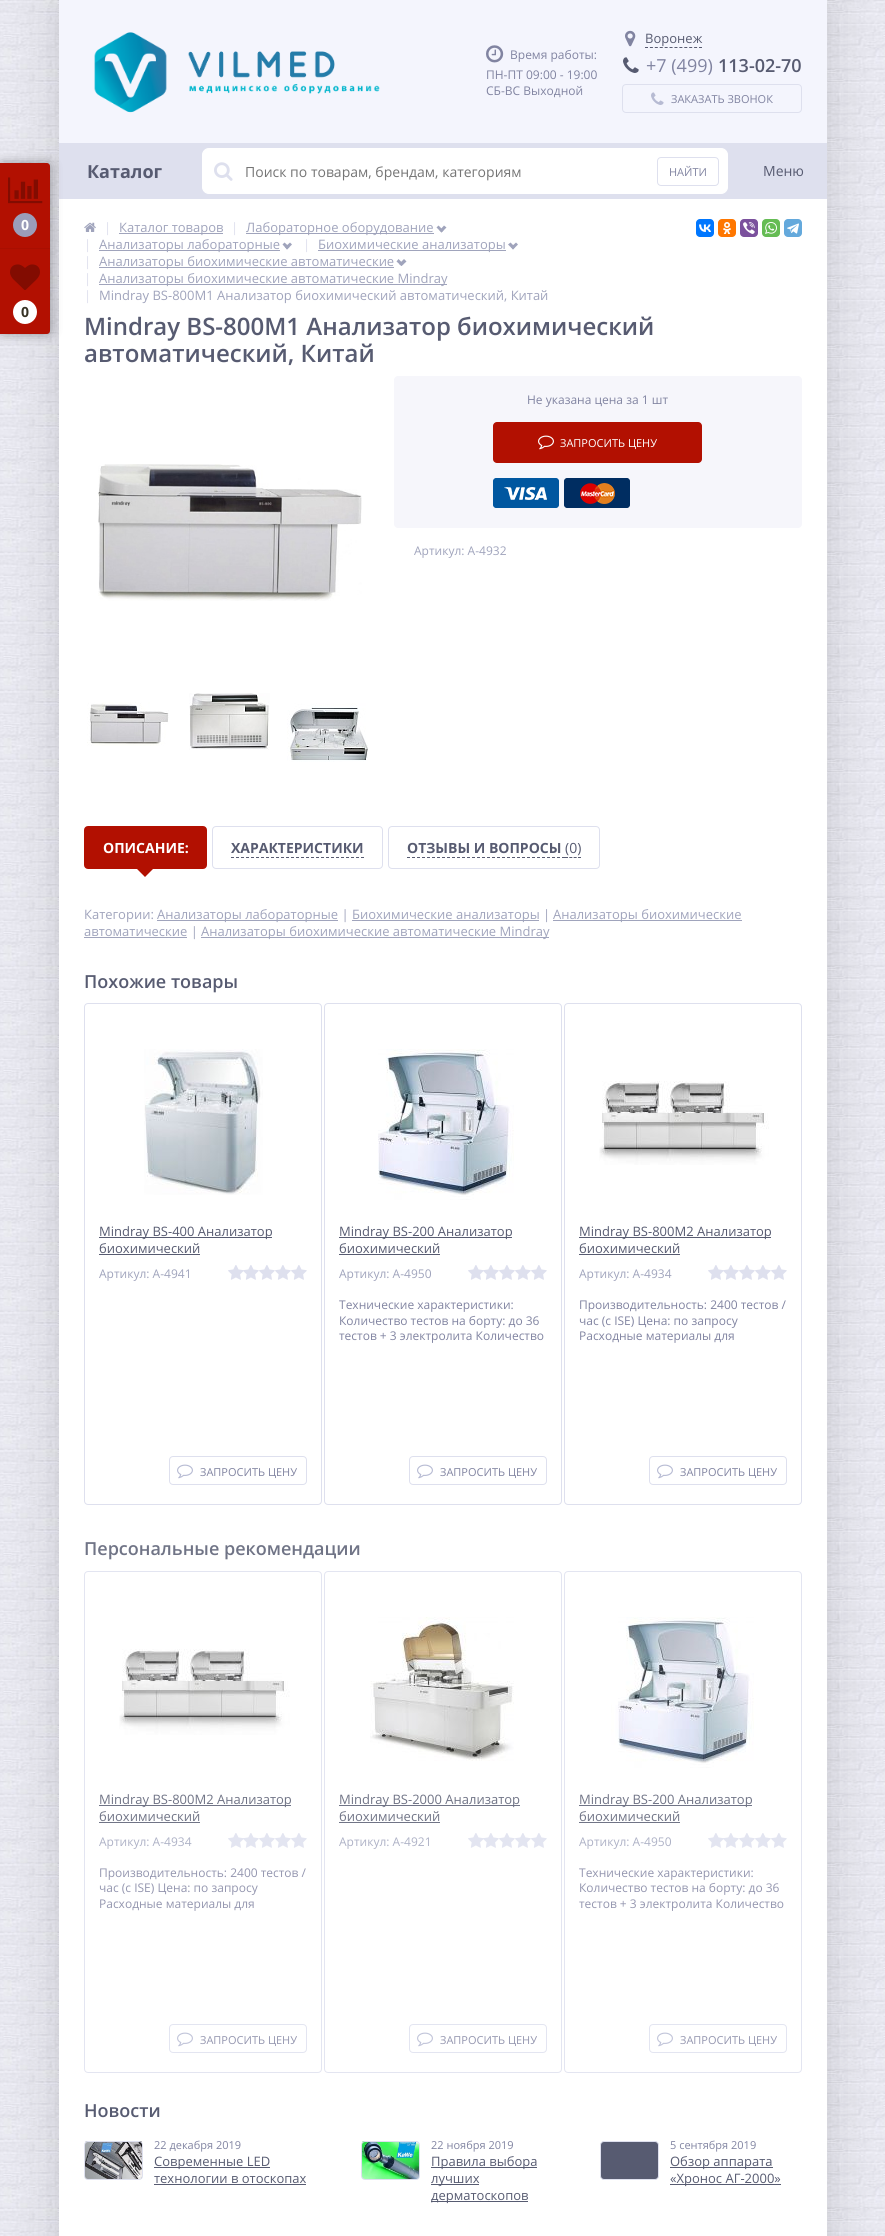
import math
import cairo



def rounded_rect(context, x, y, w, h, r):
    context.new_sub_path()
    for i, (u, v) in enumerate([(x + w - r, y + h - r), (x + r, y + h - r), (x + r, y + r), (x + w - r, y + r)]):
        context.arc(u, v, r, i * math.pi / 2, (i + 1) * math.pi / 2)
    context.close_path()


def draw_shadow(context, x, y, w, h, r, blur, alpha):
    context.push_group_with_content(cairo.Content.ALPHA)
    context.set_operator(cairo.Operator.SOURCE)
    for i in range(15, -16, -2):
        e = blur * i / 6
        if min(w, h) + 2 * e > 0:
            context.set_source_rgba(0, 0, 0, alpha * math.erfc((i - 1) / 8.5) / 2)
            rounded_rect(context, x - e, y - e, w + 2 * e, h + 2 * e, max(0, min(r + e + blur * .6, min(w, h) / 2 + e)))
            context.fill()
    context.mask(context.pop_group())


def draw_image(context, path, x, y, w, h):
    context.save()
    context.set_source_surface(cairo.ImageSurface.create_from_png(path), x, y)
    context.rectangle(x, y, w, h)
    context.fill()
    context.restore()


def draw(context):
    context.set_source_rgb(1, 1, 1)
    context.paint()
    draw_image(context, "images/1.png", 0, 0, 885, 2236)
    context.set_source_rgb(0, 0, 0)
    draw_shadow(context, 59, 0, 768, 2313, 0, 25.5, 0.15)
    context.set_source_rgb(222 / 255, 224 / 255, 238 / 255)
    context.rectangle(59, 143, 768, 56)
    context.fill()
    context.set_source_rgb(1, 1, 1)
    context.rectangle(59, 199, 768, 2037)
    context.fill()
    context.set_source_rgb(0, 0, 0)
    draw_shadow(context, 0, 163, 50, 171, 3, 6, 0.36)
    context.set_source_rgb(178 / 255, 16 / 255, 1 / 255)
    context.new_path()
    context.move_to(0, 163)
    context.line_to(47, 163)
    context.curve_to(48.5, 163, 50, 164.5, 50, 166)
    context.line_to(50, 331)
    context.curve_to(50, 332.5, 48.5, 334, 47, 334)
    context.line_to(0, 334)
    context.close_path()
    context.fill()
    context.set_source_rgb(169 / 255, 15 / 255, 1 / 255)
    context.rectangle(0, 248, 50, 1)
    context.fill()
    draw_image(context, "images/2.png", 8, 177, 35, 27)
    context.set_source_rgb(155 / 255, 157 / 255, 185 / 255)
    context.arc(25, 225, 12, 0, 2 * math.pi)
    context.fill()
    draw_image(context, "images/3.png", 10, 264, 30, 26)
    context.set_source_rgb(1, 1, 1)
    context.arc(25, 312, 12, 0, 2 * math.pi)
    context.fill()
    context.set_source_rgb(244 / 255, 245 / 255, 253 / 255)
    context.rectangle(59, 0, 768, 143)
    context.fill()
    draw_image(context, "images/4.png", 94, 32, 286, 81)
    draw_image(context, "images/5.png", 486, 45, 18, 18)
    draw_image(context, "images/6.png", 625, 30, 11, 17)
    context.new_path()
    context.move_to(645, 47.5)
    context.line_to(702, 47.5)
    context.set_source_rgb(87 / 255, 91 / 255, 113 / 255)
    context.set_line_width(1)
    context.set_dash([3, 1.91])
    context.stroke()
    draw_image(context, "images/7.png", 623, 57, 16, 16)
    rounded_rect(context, 622.5, 84.5, 179, 28, 3.5)
    context.set_source_rgb(222 / 255, 224 / 255, 238 / 255)
    context.set_dash([])
    context.stroke()
    draw_image(context, "images/8.png", 651, 92, 13, 13)
    context.set_source_rgb(1, 1, 1)
    rounded_rect(context, 202.5, 148.5, 525, 45, 6.5)
    context.fill_preserve()
    context.stroke()
    draw_image(context, "images/9.png", 214, 162, 19, 19)
    rounded_rect(context, 657.5, 157.5, 61, 28, 3.5)
    context.set_source_rgb(222 / 255, 224 / 255, 238 / 255)
    context.stroke()
    draw_image(context, "images/10.png", 84, 222, 12, 10)
    context.set_source_rgb(160 / 255, 164 / 255, 188 / 255)
    context.rectangle(119, 233, 104, 1)
    context.fill()
    context.rectangle(246, 233, 188, 1)
    context.fill()
    context.new_path()
    context.move_to(444, 225.5)
    context.line_to(446.5, 227.5)
    context.line_to(441.5, 232.5)
    context.line_to(439.5, 230.5)
    context.close_path()
    context.fill()
    context.new_path()
    context.move_to(438.5, 225.5)
    context.line_to(443.5, 230.5)
    context.line_to(441.5, 232.5)
    context.line_to(436.5, 227.5)
    context.close_path()
    context.fill()
    context.rectangle(99, 250, 181, 1)
    context.fill()
    context.new_path()
    context.move_to(290, 242.5)
    context.line_to(292, 244.5)
    context.line_to(287, 249.5)
    context.line_to(285, 247)
    context.close_path()
    context.fill()
    context.new_path()
    context.move_to(284.5, 242.5)
    context.line_to(289.5, 247)
    context.line_to(287, 249.5)
    context.line_to(282.5, 244.5)
    context.close_path()
    context.fill()
    context.rectangle(318, 250, 188, 1)
    context.fill()
    context.new_path()
    context.move_to(516, 242.5)
    context.line_to(518, 244.5)
    context.line_to(513, 249.5)
    context.line_to(511, 247)
    context.close_path()
    context.fill()
    context.new_path()
    context.move_to(510.5, 242.5)
    context.line_to(515, 247)
    context.line_to(513, 249.5)
    context.line_to(508, 244.5)
    context.close_path()
    context.fill()
    context.rectangle(99, 267, 295, 1)
    context.fill()
    context.new_path()
    context.move_to(404, 259)
    context.line_to(406.5, 261.5)
    context.line_to(401.5, 266)
    context.line_to(399, 264)
    context.close_path()
    context.fill()
    context.new_path()
    context.move_to(398.5, 259)
    context.line_to(403.5, 264)
    context.line_to(401.5, 266)
    context.line_to(396.5, 261.5)
    context.close_path()
    context.fill()
    context.rectangle(99, 284, 348, 1)
    context.fill()
    context.set_source_rgb(0, 119 / 255, 1)
    rounded_rect(context, 696, 219, 18, 18, 4)
    context.fill()
    draw_image(context, "images/11.png", 699, 224, 12, 8)
    context.set_source_rgb(1, 119 / 255, 0)
    rounded_rect(context, 718, 219, 18, 18, 4)
    context.fill()
    draw_image(context, "images/12.png", 723, 222, 8, 12)
    context.set_source_rgb(123 / 255, 81 / 255, 157 / 255)
    rounded_rect(context, 740, 219, 18, 18, 4)
    context.fill()
    draw_image(context, "images/13.png", 743, 222, 12, 12)
    context.set_source_rgb(101 / 255, 188 / 255, 84 / 255)
    rounded_rect(context, 762, 219, 18, 18, 4)
    context.fill()
    draw_image(context, "images/14.png", 765, 222, 12, 12)
    context.set_source_rgb(100 / 255, 169 / 255, 220 / 255)
    rounded_rect(context, 784, 219, 18, 18, 4)
    context.fill()
    draw_image(context, "images/15.png", 787, 223, 12, 11)
    draw_image(context, "images/16.png", 98, 464, 264, 137)
    draw_image(context, "images/17.png", 87, 702, 82, 44)
    draw_image(context, "images/18.png", 189, 693, 81, 57)
    draw_image(context, "images/19.png", 287, 703, 81, 59)
    context.set_source_rgb(246 / 255, 246 / 255, 251 / 255)
    rounded_rect(context, 394, 376, 408, 152, 4)
    context.fill()
    context.set_source_rgb(178 / 255, 16 / 255, 1 / 255)
    rounded_rect(context, 493, 422, 209, 41, 4)
    context.fill()
    draw_image(context, "images/20.png", 538, 435, 16, 15)
    draw_image(context, "images/21.png", 493, 478, 66, 30)
    draw_image(context, "images/22.png", 564, 478, 66, 30)
    rounded_rect(context, 85, 827, 121, 41, 3)
    context.fill_preserve()
    context.set_line_width(2)
    context.stroke()
    context.new_path()
    context.move_to(137, 869)
    context.line_to(153, 869)
    context.line_to(145, 877)
    context.close_path()
    context.fill()
    rounded_rect(context, 212.5, 826.5, 170, 42, 3.5)
    context.set_source_rgb(222 / 255, 224 / 255, 238 / 255)
    context.set_line_width(1)
    context.stroke()
    context.new_path()
    context.move_to(231, 857.5)
    context.line_to(364, 857.5)
    context.set_source_rgb(87 / 255, 91 / 255, 113 / 255)
    context.set_dash([3, 2])
    context.stroke()
    rounded_rect(context, 388.5, 826.5, 211, 42, 3.5)
    context.set_source_rgb(222 / 255, 224 / 255, 238 / 255)
    context.set_dash([])
    context.stroke()
    context.new_path()
    context.move_to(407, 857.5)
    context.line_to(565, 857.5)
    context.set_source_rgb(87 / 255, 91 / 255, 113 / 255)
    context.set_dash([3, 2])
    context.stroke()
    context.new_path()
    context.move_to(565, 857.5)
    context.line_to(581, 857.5)
    context.set_dash([3, 1.33])
    context.stroke()
    context.set_source_rgb(160 / 255, 164 / 255, 188 / 255)
    context.rectangle(157, 920, 181, 1)
    context.fill()
    context.rectangle(352, 920, 187, 1)
    context.fill()
    context.rectangle(553, 920, 189, 1)
    context.fill()
    context.rectangle(84, 937, 103, 1)
    context.fill()
    context.rectangle(201, 937, 348, 1)
    context.fill()
    rounded_rect(context, 84.5, 1003.5, 237, 501, 3.5)
    context.set_source_rgb(222 / 255, 224 / 255, 238 / 255)
    context.set_dash([])
    context.stroke()
    draw_image(context, "images/23.png", 144, 1049, 119, 146)
    context.set_source_rgb(87 / 255, 91 / 255, 113 / 255)
    context.rectangle(99, 1237, 173, 1)
    context.fill()
    context.rectangle(99, 1254, 101, 1)
    context.fill()
    draw_image(context, "images/24.png", 228, 1265, 16, 15)
    draw_image(context, "images/25.png", 243, 1265, 16, 15)
    draw_image(context, "images/24.png", 259, 1265, 16, 15)
    draw_image(context, "images/24.png", 275, 1265, 16, 15)
    draw_image(context, "images/24.png", 291, 1265, 16, 15)
    rounded_rect(context, 169.5, 1456.5, 137, 28, 3.5)
    context.set_source_rgb(222 / 255, 224 / 255, 238 / 255)
    context.stroke()
    draw_image(context, "images/26.png", 177, 1464, 16, 15)
    rounded_rect(context, 324.5, 1003.5, 237, 501, 3.5)
    context.stroke()
    draw_image(context, "images/27.png", 378, 1049, 136, 151)
    context.set_source_rgb(87 / 255, 91 / 255, 113 / 255)
    context.rectangle(339, 1237, 173, 1)
    context.fill()
    context.rectangle(339, 1254, 101, 1)
    context.fill()
    draw_image(context, "images/24.png", 468, 1265, 16, 15)
    draw_image(context, "images/25.png", 483, 1265, 16, 15)
    draw_image(context, "images/24.png", 499, 1265, 16, 15)
    draw_image(context, "images/24.png", 515, 1265, 16, 15)
    draw_image(context, "images/24.png", 531, 1265, 16, 15)
    rounded_rect(context, 409.5, 1456.5, 137, 28, 3.5)
    context.set_source_rgb(222 / 255, 224 / 255, 238 / 255)
    context.stroke()
    draw_image(context, "images/26.png", 417, 1464, 16, 15)
    rounded_rect(context, 564.5, 1003.5, 237, 501, 3.5)
    context.stroke()
    draw_image(context, "images/28.png", 599, 1081, 170, 84)
    context.set_source_rgb(87 / 255, 91 / 255, 113 / 255)
    context.rectangle(579, 1237, 192, 1)
    context.fill()
    context.rectangle(579, 1254, 101, 1)
    context.fill()
    draw_image(context, "images/24.png", 708, 1265, 16, 15)
    draw_image(context, "images/25.png", 723, 1265, 16, 15)
    draw_image(context, "images/24.png", 739, 1265, 16, 15)
    draw_image(context, "images/24.png", 755, 1265, 16, 15)
    draw_image(context, "images/24.png", 771, 1265, 16, 15)
    rounded_rect(context, 649.5, 1456.5, 137, 28, 3.5)
    context.set_source_rgb(222 / 255, 224 / 255, 238 / 255)
    context.stroke()
    draw_image(context, "images/26.png", 657, 1464, 16, 15)
    rounded_rect(context, 84.5, 1571.5, 237, 501, 3.5)
    context.set_source_rgb(227 / 255, 229 / 255, 241 / 255)
    context.stroke()
    draw_image(context, "images/29.png", 119, 1649, 171, 86)
    context.set_source_rgb(112 / 255, 116 / 255, 134 / 255)
    context.rectangle(99, 1805, 192, 1)
    context.fill()
    context.rectangle(99, 1822, 101, 1)
    context.fill()
    draw_image(context, "images/30.png", 228, 1833, 16, 15)
    draw_image(context, "images/31.png", 243, 1833, 16, 15)
    draw_image(context, "images/30.png", 259, 1833, 16, 15)
    draw_image(context, "images/30.png", 275, 1833, 16, 15)
    draw_image(context, "images/30.png", 291, 1833, 16, 15)
    rounded_rect(context, 169.5, 2024.5, 137, 28, 3.5)
    context.set_source_rgb(227 / 255, 229 / 255, 241 / 255)
    context.stroke()
    draw_image(context, "images/32.png", 177, 2032, 16, 15)
    rounded_rect(context, 324.5, 1571.5, 237, 501, 3.5)
    context.stroke()
    draw_image(context, "images/33.png", 370, 1617, 144, 144)
    context.set_source_rgb(112 / 255, 116 / 255, 134 / 255)
    context.rectangle(339, 1805, 181, 1)
    context.fill()
    context.rectangle(339, 1822, 101, 1)
    context.fill()
    draw_image(context, "images/30.png", 468, 1833, 16, 15)
    draw_image(context, "images/31.png", 483, 1833, 16, 15)
    draw_image(context, "images/30.png", 499, 1833, 16, 15)
    draw_image(context, "images/30.png", 515, 1833, 16, 15)
    draw_image(context, "images/30.png", 531, 1833, 16, 15)
    rounded_rect(context, 409.5, 2024.5, 137, 28, 3.5)
    context.set_source_rgb(227 / 255, 229 / 255, 241 / 255)
    context.stroke()
    draw_image(context, "images/32.png", 417, 2032, 16, 15)
    rounded_rect(context, 564.5, 1571.5, 237, 501, 3.5)
    context.stroke()
    draw_image(context, "images/34.png", 611, 1617, 143, 151)
    context.set_source_rgb(112 / 255, 116 / 255, 134 / 255)
    context.rectangle(579, 1805, 173, 1)
    context.fill()
    context.rectangle(579, 1822, 101, 1)
    context.fill()
    draw_image(context, "images/30.png", 708, 1833, 16, 15)
    draw_image(context, "images/31.png", 723, 1833, 16, 15)
    draw_image(context, "images/30.png", 739, 1833, 16, 15)
    draw_image(context, "images/30.png", 755, 1833, 16, 15)
    draw_image(context, "images/30.png", 771, 1833, 16, 15)
    rounded_rect(context, 649.5, 2024.5, 137, 28, 3.5)
    context.set_source_rgb(227 / 255, 229 / 255, 241 / 255)
    context.stroke()
    draw_image(context, "images/32.png", 657, 2032, 16, 15)
    draw_image(context, "images/35.png", 85, 2141, 57, 38)
    rounded_rect(context, 84.5, 2141.5, 58, 38, 3.5)
    context.set_source_rgb(222 / 255, 224 / 255, 238 / 255)
    context.stroke()
    context.set_source_rgb(87 / 255, 91 / 255, 113 / 255)
    context.rectangle(154, 2167, 116, 1)
    context.fill()
    context.rectangle(154, 2184, 152, 1)
    context.fill()
    draw_image(context, "images/36.png", 362, 2141, 57, 38)
    rounded_rect(context, 361.5, 2141.5, 58, 38, 3.5)
    context.set_source_rgb(222 / 255, 224 / 255, 238 / 255)
    context.stroke()
    context.set_source_rgb(87 / 255, 91 / 255, 113 / 255)
    context.rectangle(431, 2167, 106, 1)
    context.fill()
    context.rectangle(431, 2184, 48, 1)
    context.fill()
    context.rectangle(431, 2201, 97, 1)
    context.fill()
    rounded_rect(context, 600.5, 2141.5, 58, 38, 3.5)
    context.fill_preserve()
    context.set_source_rgb(222 / 255, 224 / 255, 238 / 255)
    context.stroke()
    context.set_source_rgb(87 / 255, 91 / 255, 113 / 255)
    context.rectangle(670, 2167, 103, 1)
    context.fill()
    context.rectangle(670, 2184, 111, 1)
    context.fill()
    context.select_font_face("Open Sans", cairo.FontSlant.NORMAL, cairo.FontWeight.BOLD)
    context.set_font_size(14)
    context.set_source_rgb(1, 1, 1)
    context.move_to(21, 230)
    context.show_text("0")
    context.set_source_rgb(54 / 255, 50 / 255, 36 / 255)
    context.move_to(21, 317)
    context.show_text("0")
    context.select_font_face("Open Sans")
    context.set_font_size(12)
    context.set_source_rgb(129 / 255, 132 / 255, 161 / 255)
    context.move_to(510, 59)
    context.show_text("Время работы:")
    context.move_to(486, 79)
    context.show_text("ПН-ПТ 09:00 - 19:00")
    context.move_to(486, 95)
    context.show_text("СБ-ВС Выходной")
    context.set_font_size(13)
    context.set_source_rgb(87 / 255, 91 / 255, 113 / 255)
    context.move_to(645, 43)
    context.show_text("Воронеж")
    context.set_font_size(18)
    context.set_source_rgb(129 / 255, 132 / 255, 161 / 255)
    context.move_to(646, 72)
    context.show_text("+7 (499)")
    context.select_font_face("Open Sans SemiBold")
    context.set_source_rgb(87 / 255, 91 / 255, 113 / 255)
    context.move_to(718, 72)
    context.show_text("113-02-70")
    context.select_font_face("Open Sans")
    context.set_font_size(11)
    context.set_source_rgb(129 / 255, 132 / 255, 161 / 255)
    context.move_to(671, 103)
    context.show_text("ЗАКАЗАТЬ ЗВОНОК")
    context.set_font_size(14)
    context.set_source_rgb(117 / 255, 117 / 255, 117 / 255)
    context.move_to(245, 177)
    context.show_text("Поиск по товарам, брендам, категориям")
    context.set_font_size(11)
    context.set_source_rgb(129 / 255, 132 / 255, 161 / 255)
    context.move_to(669, 176)
    context.show_text("НАЙТИ")
    context.select_font_face("Open Sans", cairo.FontSlant.NORMAL, cairo.FontWeight.BOLD)
    context.set_font_size(18)
    context.set_source_rgb(87 / 255, 91 / 255, 113 / 255)
    context.move_to(87, 178)
    context.show_text("Каталог")
    context.select_font_face("Open Sans")
    context.set_font_size(14)
    context.move_to(763, 176)
    context.show_text("Меню")
    context.set_font_size(13)
    context.set_source_rgb(222 / 255, 224 / 255, 238 / 255)
    context.move_to(104, 232)
    context.show_text("|")
    context.set_source_rgb(160 / 255, 164 / 255, 188 / 255)
    context.move_to(119, 232)
    context.show_text("Каталог товаров")
    context.set_source_rgb(222 / 255, 224 / 255, 238 / 255)
    context.move_to(231, 232)
    context.show_text("|")
    context.set_source_rgb(160 / 255, 164 / 255, 188 / 255)
    context.move_to(246, 232)
    context.show_text("Лабораторное оборудование")
    context.set_source_rgb(222 / 255, 224 / 255, 238 / 255)
    context.move_to(84, 249)
    context.show_text("|")
    context.set_source_rgb(160 / 255, 164 / 255, 188 / 255)
    context.move_to(99, 249)
    context.show_text("Анализаторы лабораторные")
    context.set_source_rgb(222 / 255, 224 / 255, 238 / 255)
    context.move_to(303, 249)
    context.show_text("|")
    context.set_source_rgb(160 / 255, 164 / 255, 188 / 255)
    context.move_to(318, 249)
    context.show_text("Биохимические анализаторы")
    context.set_source_rgb(222 / 255, 224 / 255, 238 / 255)
    context.move_to(84, 266)
    context.show_text("|")
    context.set_source_rgb(160 / 255, 164 / 255, 188 / 255)
    context.move_to(99, 266)
    context.show_text("Анализаторы биохимические автоматические")
    context.set_source_rgb(222 / 255, 224 / 255, 238 / 255)
    context.move_to(84, 283)
    context.show_text("|")
    context.set_source_rgb(160 / 255, 164 / 255, 188 / 255)
    context.move_to(99, 283)
    context.show_text("Анализаторы биохимические автоматические Mindray")
    context.set_source_rgb(222 / 255, 224 / 255, 238 / 255)
    context.move_to(84, 300)
    context.show_text("|")
    context.set_source_rgb(160 / 255, 164 / 255, 188 / 255)
    context.move_to(99, 300)
    context.show_text("Mindray BS-800M1 Анализатор биохимический автоматический, Китай")
    context.select_font_face("Open Sans SemiBold")
    context.set_font_size(24)
    context.set_source_rgb(87 / 255, 91 / 255, 113 / 255)
    context.move_to(84, 335)
    context.show_text("Mindray BS-800M1 Анализатор биохимический")
    context.move_to(84, 362)
    context.show_text("автоматический, Китай")
    context.select_font_face("Open Sans")
    context.set_font_size(12)
    context.set_source_rgb(129 / 255, 132 / 255, 161 / 255)
    context.move_to(527, 404)
    context.show_text("Не указана цена за 1 шт")
    context.set_font_size(11)
    context.set_source_rgb(1, 1, 1)
    context.move_to(560, 447)
    context.show_text("ЗАПРОСИТЬ ЦЕНУ")
    context.set_font_size(12)
    context.set_source_rgb(160 / 255, 164 / 255, 188 / 255)
    context.move_to(414, 555)
    context.show_text("Артикул: A-4932")
    context.select_font_face("Open Sans", cairo.FontSlant.NORMAL, cairo.FontWeight.BOLD)
    context.set_font_size(14)
    context.set_source_rgb(1, 1, 1)
    context.move_to(103, 853)
    context.show_text("ОПИСАНИЕ:")
    context.set_source_rgb(87 / 255, 91 / 255, 113 / 255)
    context.move_to(231, 853)
    context.show_text("ХАРАКТЕРИСТИКИ")
    context.move_to(407, 853)
    context.show_text("ОТЗЫВЫ И ВОПРОСЫ")
    context.select_font_face("Open Sans")
    context.move_to(565, 853)
    context.show_text("(0)")
    context.set_font_size(13)
    context.set_source_rgb(160 / 255, 164 / 255, 188 / 255)
    context.move_to(84, 919)
    context.show_text("Категории:")
    context.move_to(157, 919)
    context.show_text("Анализаторы лабораторные |")
    context.move_to(352, 919)
    context.show_text("Биохимические анализаторы |")
    context.move_to(553, 919)
    context.show_text("Анализаторы биохимические")
    context.move_to(84, 936)
    context.show_text("автоматические |")
    context.move_to(201, 936)
    context.show_text("Анализаторы биохимические автоматические Mindray")
    context.select_font_face("Open Sans SemiBold")
    context.set_font_size(18)
    context.set_source_rgb(87 / 255, 91 / 255, 113 / 255)
    context.move_to(84, 988)
    context.show_text("Похожие товары")
    context.select_font_face("Open Sans")
    context.set_font_size(13)
    context.move_to(99, 1236)
    context.show_text("Mindray BS-400 Анализатор")
    context.move_to(99, 1253)
    context.show_text("биохимический")
    context.set_font_size(12)
    context.set_source_rgb(160 / 255, 164 / 255, 188 / 255)
    context.move_to(99, 1278)
    context.show_text("Артикул: A-4941")
    context.set_font_size(11)
    context.set_source_rgb(129 / 255, 132 / 255, 161 / 255)
    context.move_to(200, 1476)
    context.show_text("ЗАПРОСИТЬ ЦЕНУ")
    context.set_font_size(13)
    context.set_source_rgb(87 / 255, 91 / 255, 113 / 255)
    context.move_to(339, 1236)
    context.show_text("Mindray BS-200 Анализатор")
    context.move_to(339, 1253)
    context.show_text("биохимический")
    context.set_font_size(12)
    context.set_source_rgb(160 / 255, 164 / 255, 188 / 255)
    context.move_to(339, 1278)
    context.show_text("Артикул: A-4950")
    context.set_source_rgb(129 / 255, 132 / 255, 161 / 255)
    context.move_to(339, 1309)
    context.show_text("Технические характеристики:")
    context.move_to(339, 1325)
    context.show_text("Количество тестов на борту: до 36")
    context.move_to(339, 1340)
    context.show_text("тестов + 3 электролита Количество")
    context.set_font_size(11)
    context.move_to(440, 1476)
    context.show_text("ЗАПРОСИТЬ ЦЕНУ")
    context.set_font_size(13)
    context.set_source_rgb(87 / 255, 91 / 255, 113 / 255)
    context.move_to(579, 1236)
    context.show_text("Mindray BS-800M2 Анализатор")
    context.move_to(579, 1253)
    context.show_text("биохимический")
    context.set_font_size(12)
    context.set_source_rgb(160 / 255, 164 / 255, 188 / 255)
    context.move_to(579, 1278)
    context.show_text("Артикул: A-4934")
    context.set_source_rgb(129 / 255, 132 / 255, 161 / 255)
    context.move_to(579, 1309)
    context.show_text("Производительность: 2400 тестов /")
    context.move_to(579, 1325)
    context.show_text("час (с ISE) Цена: по запросу")
    context.move_to(579, 1340)
    context.show_text("Расходные материалы для")
    context.set_font_size(11)
    context.move_to(680, 1476)
    context.show_text("ЗАПРОСИТЬ ЦЕНУ")
    context.select_font_face("Open Sans SemiBold")
    context.set_font_size(18)
    context.set_source_rgb(112 / 255, 116 / 255, 134 / 255)
    context.move_to(84, 1555)
    context.show_text("Персональные рекомендации")
    context.select_font_face("Open Sans")
    context.set_font_size(13)
    context.move_to(99, 1804)
    context.show_text("Mindray BS-800M2 Анализатор")
    context.move_to(99, 1821)
    context.show_text("биохимический")
    context.set_font_size(12)
    context.set_source_rgb(174 / 255, 178 / 255, 198 / 255)
    context.move_to(99, 1846)
    context.show_text("Артикул: A-4934")
    context.set_source_rgb(148 / 255, 150 / 255, 175 / 255)
    context.move_to(99, 1877)
    context.show_text("Производительность: 2400 тестов /")
    context.move_to(99, 1892)
    context.show_text("час (с ISE) Цена: по запросу")
    context.move_to(99, 1908)
    context.show_text("Расходные материалы для")
    context.set_font_size(11)
    context.move_to(200, 2044)
    context.show_text("ЗАПРОСИТЬ ЦЕНУ")
    context.set_font_size(13)
    context.set_source_rgb(112 / 255, 116 / 255, 134 / 255)
    context.move_to(339, 1804)
    context.show_text("Mindray BS-2000 Анализатор")
    context.move_to(339, 1821)
    context.show_text("биохимический")
    context.set_font_size(12)
    context.set_source_rgb(174 / 255, 178 / 255, 198 / 255)
    context.move_to(339, 1846)
    context.show_text("Артикул: A-4921")
    context.set_font_size(11)
    context.set_source_rgb(148 / 255, 150 / 255, 175 / 255)
    context.move_to(440, 2044)
    context.show_text("ЗАПРОСИТЬ ЦЕНУ")
    context.set_font_size(13)
    context.set_source_rgb(112 / 255, 116 / 255, 134 / 255)
    context.move_to(579, 1804)
    context.show_text("Mindray BS-200 Анализатор")
    context.move_to(579, 1821)
    context.show_text("биохимический")
    context.set_font_size(12)
    context.set_source_rgb(174 / 255, 178 / 255, 198 / 255)
    context.move_to(579, 1846)
    context.show_text("Артикул: A-4950")
    context.set_source_rgb(148 / 255, 150 / 255, 175 / 255)
    context.move_to(579, 1877)
    context.show_text("Технические характеристики:")
    context.move_to(579, 1892)
    context.show_text("Количество тестов на борту: до 36")
    context.move_to(579, 1908)
    context.show_text("тестов + 3 электролита Количество")
    context.set_font_size(11)
    context.move_to(680, 2044)
    context.show_text("ЗАПРОСИТЬ ЦЕНУ")
    context.select_font_face("Open Sans SemiBold")
    context.set_font_size(18)
    context.set_source_rgb(87 / 255, 91 / 255, 113 / 255)
    context.move_to(84, 2117)
    context.show_text("Новости")
    context.select_font_face("Open Sans")
    context.set_font_size(11)
    context.set_source_rgb(129 / 255, 132 / 255, 161 / 255)
    context.move_to(154, 2149)
    context.show_text("22 декабря 2019")
    context.set_font_size(13)
    context.set_source_rgb(87 / 255, 91 / 255, 113 / 255)
    context.move_to(154, 2166)
    context.show_text("Современные LED")
    context.move_to(154, 2183)
    context.show_text("технологии в отоскопах")
    context.set_font_size(11)
    context.set_source_rgb(129 / 255, 132 / 255, 161 / 255)
    context.move_to(431, 2149)
    context.show_text("22 ноября 2019")
    context.set_font_size(13)
    context.set_source_rgb(87 / 255, 91 / 255, 113 / 255)
    context.move_to(431, 2166)
    context.show_text("Правила выбора")
    context.move_to(431, 2183)
    context.show_text("лучших")
    context.move_to(431, 2200)
    context.show_text("дерматоскопов")
    context.set_font_size(11)
    context.set_source_rgb(129 / 255, 132 / 255, 161 / 255)
    context.move_to(670, 2149)
    context.show_text("5 сентября 2019")
    context.set_font_size(13)
    context.set_source_rgb(87 / 255, 91 / 255, 113 / 255)
    context.move_to(670, 2166)
    context.show_text("Обзор аппарата")
    context.move_to(670, 2183)
    context.show_text("«Хронос АГ-2000»")


surface = cairo.ImageSurface(cairo.Format.RGB24, 885, 2236)
context = cairo.Context(surface)
options = cairo.FontOptions()
options.set_hint_metrics(cairo.HintMetrics.OFF)
options.set_hint_style(cairo.HintStyle.NONE)
context.set_font_options(options)
context.set_miter_limit(4)
draw(context)
surface.write_to_png("out.png")
